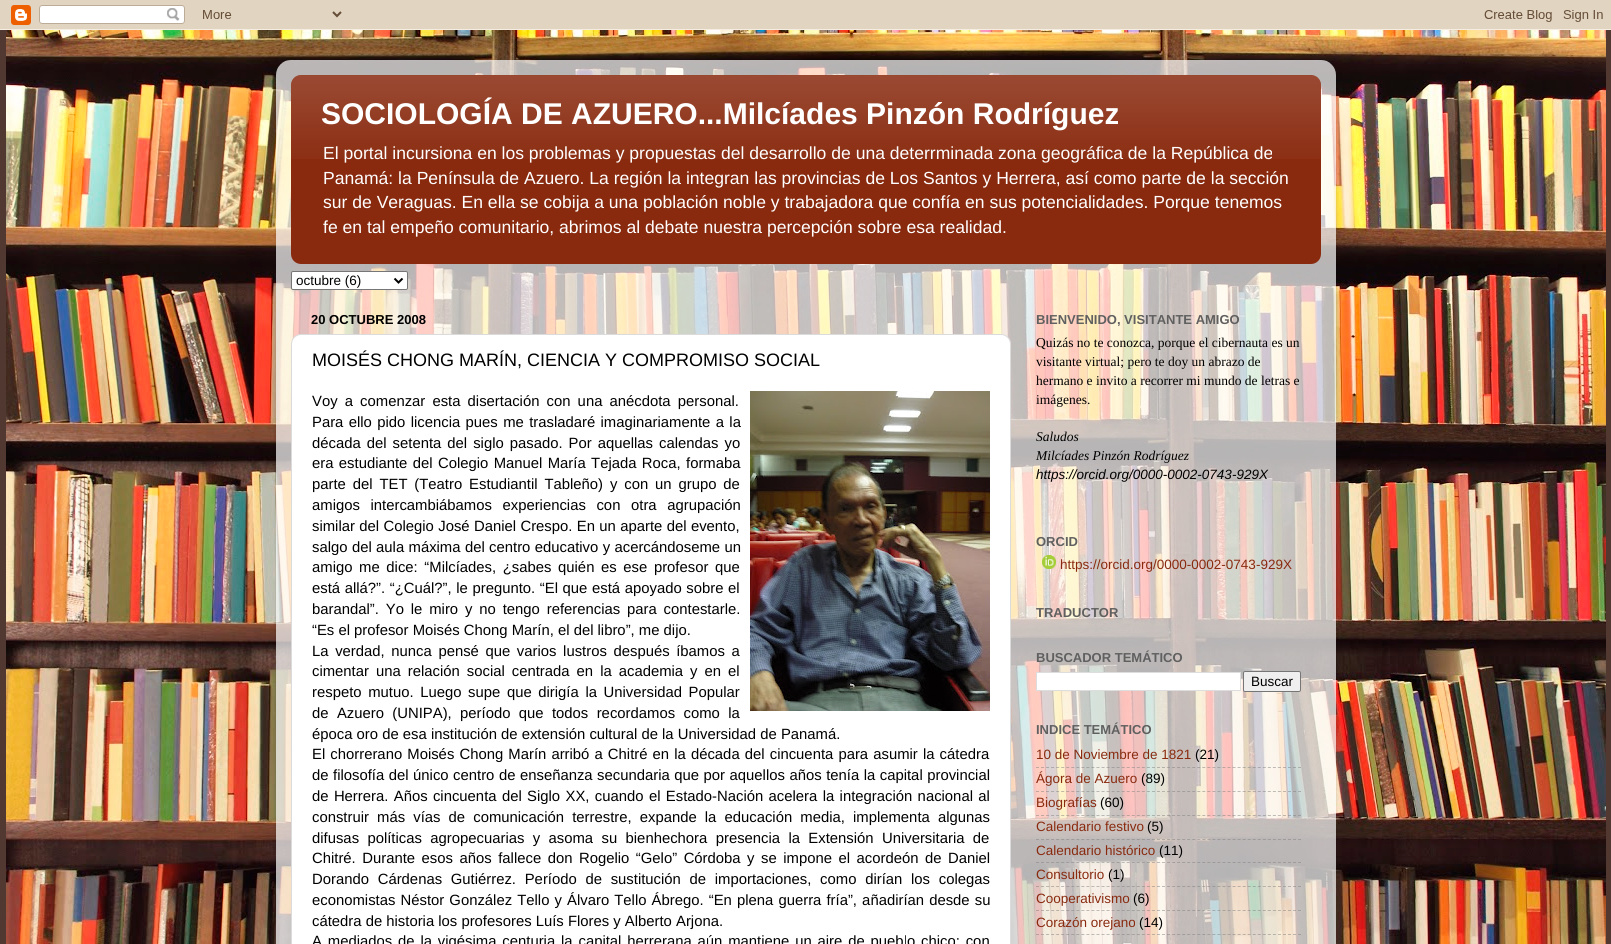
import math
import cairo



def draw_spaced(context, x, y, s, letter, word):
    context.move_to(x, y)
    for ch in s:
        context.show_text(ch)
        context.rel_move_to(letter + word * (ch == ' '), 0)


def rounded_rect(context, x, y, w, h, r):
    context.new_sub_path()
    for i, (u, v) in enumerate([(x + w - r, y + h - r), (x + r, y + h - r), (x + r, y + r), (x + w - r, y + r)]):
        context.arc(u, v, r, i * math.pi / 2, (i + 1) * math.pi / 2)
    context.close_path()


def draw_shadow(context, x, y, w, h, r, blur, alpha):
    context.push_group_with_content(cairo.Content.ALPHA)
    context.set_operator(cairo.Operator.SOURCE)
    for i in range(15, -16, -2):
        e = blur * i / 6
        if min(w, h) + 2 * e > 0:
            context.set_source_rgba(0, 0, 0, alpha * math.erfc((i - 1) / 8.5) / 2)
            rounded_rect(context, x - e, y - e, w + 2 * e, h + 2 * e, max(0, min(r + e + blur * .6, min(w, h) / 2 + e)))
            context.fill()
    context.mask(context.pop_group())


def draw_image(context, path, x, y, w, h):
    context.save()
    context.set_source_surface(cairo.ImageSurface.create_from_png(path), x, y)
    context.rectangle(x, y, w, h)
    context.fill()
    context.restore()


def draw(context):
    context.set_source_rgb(81 / 255, 56 / 255, 49 / 255)
    context.paint()
    draw_image(context, "images/1.png", 6, 30, 1600, 914)
    draw_image(context, "images/2.png", 0, 0, 1611, 30)
    context.save()
    context.set_fill_rule(cairo.FillRule.EVEN_ODD)
    context.new_path()
    context.move_to(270, 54)
    context.line_to(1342, 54)
    context.line_to(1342, 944)
    context.line_to(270, 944)
    context.close_path()
    context.move_to(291, 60)
    context.line_to(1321, 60)
    context.curve_to(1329.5, 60, 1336, 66.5, 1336, 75)
    context.line_to(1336, 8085)
    context.curve_to(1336, 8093.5, 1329.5, 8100, 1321, 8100)
    context.line_to(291, 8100)
    context.curve_to(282.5, 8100, 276, 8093.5, 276, 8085)
    context.line_to(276, 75)
    context.curve_to(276, 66.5, 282.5, 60, 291, 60)
    context.close_path()
    context.clip()
    context.set_source_rgb(0, 0, 0)
    draw_shadow(context, 276, 60, 1060, 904, 15, 1.5, 0.15)
    context.restore()
    draw_image(context, "images/3.png", 276, 60, 1060, 884)
    context.set_source_rgb(137 / 255, 42 / 255, 15 / 255)
    rounded_rect(context, 291, 75, 1030, 189, 10)
    context.fill()
    draw_image(context, "images/4.png", 291, 75, 1030, 84)
    context.set_source_rgb(1, 1, 1)
    rounded_rect(context, 291.5, 271.5, 116, 18, 1.5)
    context.fill_preserve()
    context.set_source_rgb(118 / 255, 118 / 255, 118 / 255)
    context.set_line_width(1)
    context.stroke()
    context.new_path()
    context.move_to(394.5, 278.5)
    context.line_to(398.5, 282.5)
    context.line_to(402.5, 278.5)
    context.set_source_rgb(0, 0, 0)
    context.set_line_width(2)
    context.stroke()
    context.set_source_rgb(1, 1, 1)
    rounded_rect(context, 291.5, 334.5, 719, 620, 9.5)
    context.fill_preserve()
    context.set_source_rgb(219 / 255, 219 / 255, 219 / 255)
    context.set_line_width(1)
    context.stroke()
    draw_image(context, "images/5.png", 750, 391, 240, 320)
    draw_image(context, "images/6.png", 1042, 555, 14, 14)
    context.set_source_rgb(1, 1, 1)
    context.rectangle(1036.5, 672.5, 204, 18)
    context.fill_preserve()
    context.set_source_rgb(221 / 255, 221 / 255, 221 / 255)
    context.stroke()
    context.set_source_rgb(239 / 255, 239 / 255, 239 / 255)
    rounded_rect(context, 1243.5, 671.5, 57, 20, 1.5)
    context.fill_preserve()
    context.set_source_rgb(118 / 255, 118 / 255, 118 / 255)
    context.stroke()
    context.new_path()
    context.move_to(1036, 767.5)
    context.line_to(1301, 767.5)
    context.set_source_rgba(128 / 255, 128 / 255, 128 / 255, 0.5)
    context.set_dash([3, 2.04])
    context.stroke()
    context.new_path()
    context.move_to(1036, 791.5)
    context.line_to(1301, 791.5)
    context.stroke()
    context.new_path()
    context.move_to(1036, 815.5)
    context.line_to(1301, 815.5)
    context.stroke()
    context.new_path()
    context.move_to(1036, 839.5)
    context.line_to(1301, 839.5)
    context.stroke()
    context.new_path()
    context.move_to(1036, 862.5)
    context.line_to(1301, 862.5)
    context.stroke()
    context.new_path()
    context.move_to(1036, 886.5)
    context.line_to(1301, 886.5)
    context.stroke()
    context.new_path()
    context.move_to(1036, 910.5)
    context.line_to(1301, 910.5)
    context.stroke()
    context.new_path()
    context.move_to(1036, 934.5)
    context.line_to(1301, 934.5)
    context.stroke()
    context.select_font_face("Liberation Sans", cairo.FontSlant.NORMAL, cairo.FontWeight.BOLD)
    context.set_font_size(30)
    context.set_source_rgb(1, 1, 1)
    context.move_to(321, 124)
    context.show_text("SOCIOLOGÍA DE AZUERO...Milcíades Pinzón Rodríguez")
    context.select_font_face("Liberation Sans")
    context.set_font_size(17.55)
    context.move_to(323, 159)
    context.show_text("El portal incursiona en los problemas y propuestas del desarrollo de una deterrminada zona geográfica de la República de")
    context.move_to(323, 184)
    context.show_text("Panamá: la Península de Azuero. La región la integran las provincias de Los Santos y Herrera, así como parte de la sección")
    context.move_to(323, 208)
    context.show_text("sur de Veraguas. En ella se cobija a una población noble y trabajadora que confía en sus potencialidades. Porque tenemos")
    context.move_to(323, 233)
    context.show_text("fe en tal empeño comunitario, abrimos al debate nuestra percepción sobre esa realidad.")
    context.set_font_size(13.5)
    context.set_source_rgb(0, 0, 0)
    context.move_to(296, 285)
    context.show_text("octubre (6)")
    context.select_font_face("Liberation Sans", cairo.FontSlant.NORMAL, cairo.FontWeight.BOLD)
    context.set_font_size(13)
    context.move_to(311, 324)
    context.show_text("20 OCTUBRE 2008")
    context.select_font_face("Liberation Sans")
    context.set_font_size(18)
    context.move_to(312, 366)
    context.show_text("MOISÉS CHONG MARÍN, CIENCIA Y COMPROMISO SOCIAL")
    context.set_font_size(14.85)
    draw_spaced(context, 312, 406, "Voy a comenzar esta disertación con una anécdota personal.", 0, 3)
    draw_spaced(context, 312, 427, "Para ello pido licencia pues me trasladaré imaginariamente a la", 0, 1.25)
    draw_spaced(context, 312, 448, "década del setenta del siglo pasado. Por aquellas calendas yo", 0, 1.9)
    draw_spaced(context, 312, 468, "era estudiante del Colegio Manuel María Tejada Roca, formaba", 0, 1.25)
    draw_spaced(context, 312, 489, "parte del TET (Teatro Estudiantil Tableño) y con un grupo de", 0, 2.75)
    draw_spaced(context, 312, 510, "amigos intercambiábamos experiencias con otra agrupación", 0, 6.5)
    draw_spaced(context, 312, 531, "similar del Colegio José Daniel Crespo. En un aparte del evento,", 0, 0.25)
    draw_spaced(context, 312, 552, "salgo del aula máxima del centro educativo y acercándoseme un", 0, 0.25)
    draw_spaced(context, 312, 572, "amigo me dice: “Milcíades, ¿sabes quién es ese profesor que", 0, 2.5)
    draw_spaced(context, 312, 593, "está allá?”. “¿Cuál?”, le pregunto. “El que está apoyado sobre el", 0, 0.5)
    draw_spaced(context, 312, 614, "barandal”. Yo le miro y no tengo referencias para contestarle.", 0, 2.75)
    context.move_to(312, 635)
    context.show_text("“Es el profesor Moisés Chong Marín, el del libro”, me dijo.")
    draw_spaced(context, 312, 656, "La verdad, nunca pensé que varios lustros después íbamos a", 0, 2.5)
    draw_spaced(context, 312, 676, "cimentar una relación social centrada en la academia y en el", 0, 2.9)
    draw_spaced(context, 312, 697, "respeto mutuo. Luego supe que dirigía la Universidad Popular", 0, 2.5)
    draw_spaced(context, 312, 718, "de Azuero (UNIPA), período que todos recordamos como la", 0, 4.25)
    context.move_to(312, 739)
    context.show_text("época oro de esa institución de extensión cultural de la Universidad de Panamá.")
    draw_spaced(context, 312, 759, "El chorrerano Moisés Chong Marín arribó a Chitré en la década del cincuenta para asumir la cátedra", 0, 1)
    draw_spaced(context, 312, 780, "de filosofía del único centro de enseñanza secundaria que por aquellos años tenía la capital provincial", 0, 0.4)
    draw_spaced(context, 312, 801, "de Herrera. Años cincuenta del Siglo XX, cuando el Estado-Nación acelera la integración nacional al", 0, 1.25)
    draw_spaced(context, 312, 822, "construir más vías de comunicación terrestre, expande la educación media, implementa algunas", 0, 4)
    draw_spaced(context, 312, 843, "difusas políticas agropecuarias y asoma su bienhechora presencia la Extensión Universitaria de", 0, 4.25)
    draw_spaced(context, 312, 863, "Chitré. Durante esos años fallece don Rogelio “Gelo” Córdoba y se impone el acordeón de Daniel", 0, 2.4)
    draw_spaced(context, 312, 884, "Dorando Cárdenas Gutiérrez. Período de sustitución de importaciones, como dirían los colegas", 0, 4.6)
    draw_spaced(context, 312, 905, "economistas Néstor González Tello y Álvaro Tello Ábrego. “En plena guerra fría”, añadirían desde su", 0, 1)
    context.move_to(312, 926)
    context.show_text("cátedra de historia los profesores Luís Flores y Alberto Arjona.")
    draw_spaced(context, 312, 946, "A mediados de la vigésima centuria la capital herrerana aún mantiene un aire de pueblo chico; con", 0, 1.75)
    context.select_font_face("Liberation Sans", cairo.FontSlant.NORMAL, cairo.FontWeight.BOLD)
    context.set_font_size(13)
    context.set_source_rgb(96 / 255, 96 / 255, 96 / 255)
    context.move_to(1036, 324)
    context.show_text("BIENVENIDO, VISITANTE AMIGO")
    context.select_font_face("Liberation Serif")
    context.set_font_size(13.5)
    context.set_source_rgb(0, 0, 0)
    context.move_to(1036, 347)
    context.show_text("Quizás no te conozca, porque el cibernauta es un")
    context.move_to(1036, 366)
    context.show_text("visitante virtual; pero te doy un abrazo de")
    context.move_to(1036, 385)
    context.show_text("hermano e invito a recorrer mi mundo de letras e")
    context.move_to(1036, 404)
    context.show_text("imágenes.")
    context.select_font_face("Liberation Serif", cairo.FontSlant.ITALIC)
    context.move_to(1036, 441)
    context.show_text("Saludos")
    context.move_to(1036, 460)
    context.show_text("Milcíades Pinzón Rodríguez")
    context.select_font_face("Liberation Sans", cairo.FontSlant.ITALIC)
    context.move_to(1036, 479)
    context.show_text("https://orcid.org/0000-0002-0743-929X")
    context.select_font_face("Liberation Sans", cairo.FontSlant.NORMAL, cairo.FontWeight.BOLD)
    context.set_font_size(13)
    context.set_source_rgb(96 / 255, 96 / 255, 96 / 255)
    context.move_to(1036, 546)
    context.show_text("ORCID")
    context.select_font_face("Liberation Sans")
    context.set_font_size(13.5)
    context.set_source_rgb(137 / 255, 42 / 255, 15 / 255)
    context.move_to(1060, 569)
    context.show_text("https://orcid.org/0000-0002-0743-929X")
    context.select_font_face("Liberation Sans", cairo.FontSlant.NORMAL, cairo.FontWeight.BOLD)
    context.set_font_size(13)
    context.set_source_rgb(96 / 255, 96 / 255, 96 / 255)
    context.move_to(1036, 617)
    context.show_text("TRADUCTOR")
    context.move_to(1036, 662)
    context.show_text("BUSCADOR TEMÁTICO")
    context.select_font_face("Liberation Sans")
    context.set_font_size(13.5)
    context.set_source_rgb(0, 0, 0)
    context.move_to(1251, 686)
    context.show_text("Buscar")
    context.select_font_face("Liberation Sans", cairo.FontSlant.NORMAL, cairo.FontWeight.BOLD)
    context.set_font_size(13)
    context.set_source_rgb(96 / 255, 96 / 255, 96 / 255)
    context.move_to(1036, 734)
    context.show_text("INDICE TEMÁTICO")
    context.select_font_face("Liberation Sans")
    context.set_font_size(13.5)
    context.set_source_rgb(137 / 255, 42 / 255, 15 / 255)
    context.move_to(1036, 759)
    context.show_text("10 de Noviembre de 1821")
    context.set_source_rgb(0, 0, 0)
    context.move_to(1195, 759)
    context.show_text("(21)")
    context.set_source_rgb(137 / 255, 42 / 255, 15 / 255)
    context.move_to(1036, 783)
    context.show_text("Ágora de Azuero")
    context.set_source_rgb(0, 0, 0)
    context.move_to(1141, 783)
    context.show_text("(89)")
    context.set_source_rgb(137 / 255, 42 / 255, 15 / 255)
    context.move_to(1036, 807)
    context.show_text("Biografías")
    context.set_source_rgb(0, 0, 0)
    context.move_to(1100, 807)
    context.show_text("(60)")
    context.set_source_rgb(137 / 255, 42 / 255, 15 / 255)
    context.move_to(1036, 831)
    context.show_text("Calendario festivo")
    context.set_source_rgb(0, 0, 0)
    context.move_to(1147, 831)
    context.show_text("(5)")
    context.set_source_rgb(137 / 255, 42 / 255, 15 / 255)
    context.move_to(1036, 855)
    context.show_text("Calendario histórico")
    context.set_source_rgb(0, 0, 0)
    context.move_to(1159, 855)
    context.show_text("(11)")
    context.set_source_rgb(137 / 255, 42 / 255, 15 / 255)
    context.move_to(1036, 879)
    context.show_text("Consultorio")
    context.set_source_rgb(0, 0, 0)
    context.move_to(1108, 879)
    context.show_text("(1)")
    context.set_source_rgb(137 / 255, 42 / 255, 15 / 255)
    context.move_to(1036, 903)
    context.show_text("Cooperativismo")
    context.set_source_rgb(0, 0, 0)
    context.move_to(1133, 903)
    context.show_text("(6)")
    context.set_source_rgb(137 / 255, 42 / 255, 15 / 255)
    context.move_to(1036, 927)
    context.show_text("Corazón orejano")
    context.set_source_rgb(0, 0, 0)
    context.move_to(1139, 927)
    context.show_text("(14)")


surface = cairo.ImageSurface(cairo.Format.RGB24, 1611, 944)
context = cairo.Context(surface)
options = cairo.FontOptions()
options.set_hint_metrics(cairo.HintMetrics.OFF)
options.set_hint_style(cairo.HintStyle.NONE)
context.set_font_options(options)
context.set_miter_limit(4)
draw(context)
surface.write_to_png("out.png")
